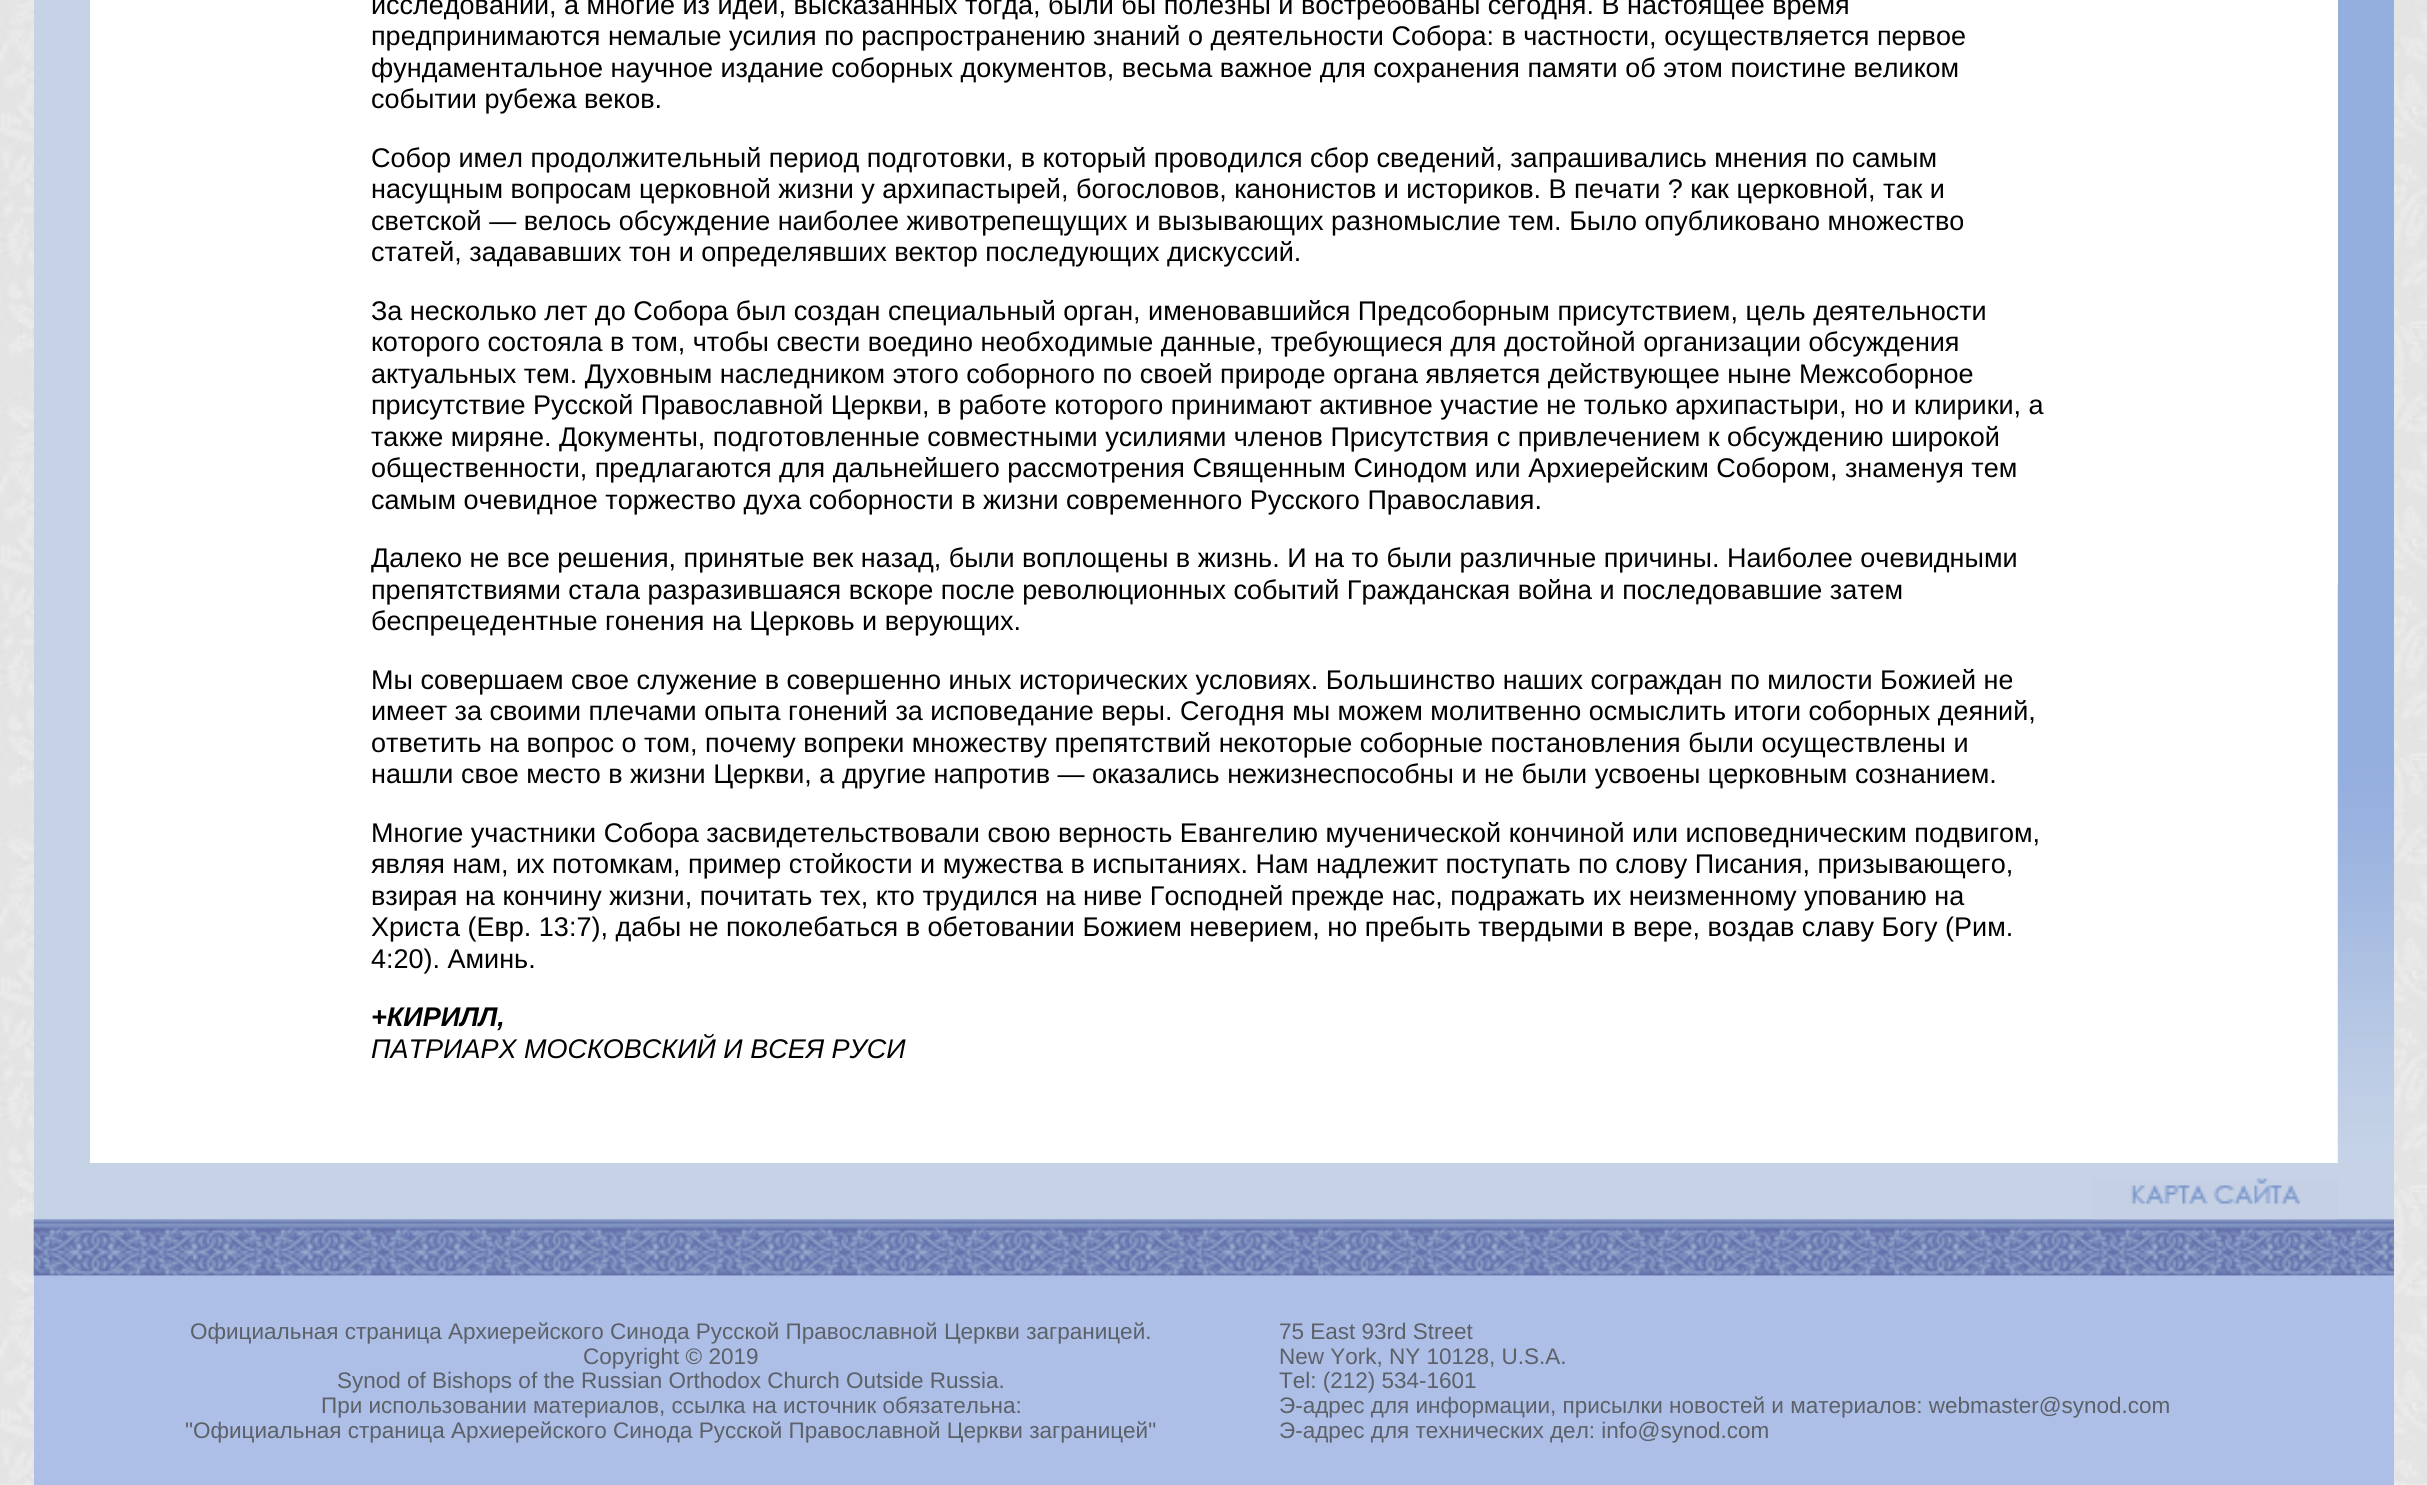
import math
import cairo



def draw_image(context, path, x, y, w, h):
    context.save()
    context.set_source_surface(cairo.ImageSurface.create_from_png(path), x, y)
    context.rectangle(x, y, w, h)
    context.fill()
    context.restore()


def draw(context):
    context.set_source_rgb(1, 1, 1)
    context.paint()
    draw_image(context, "images/1.png", 0, 0, 2427, 1485)
    context.set_source_rgb(198 / 255, 211 / 255, 231 / 255)
    context.rectangle(34, 0, 56, 1220)
    context.fill()
    context.set_source_rgb(1, 1, 1)
    context.rectangle(90, 0, 2248, 1163)
    context.fill()
    context.set_source_rgb(148 / 255, 174 / 255, 222 / 255)
    context.rectangle(2338, 0, 56, 585)
    context.fill()
    draw_image(context, "images/2.png", 2337, 584, 57, 579)
    context.set_source_rgb(198 / 255, 211 / 255, 231 / 255)
    context.rectangle(90, 1163, 2304, 57)
    context.fill()
    context.set_source_rgb(173 / 255, 190 / 255, 231 / 255)
    context.rectangle(34, 1275, 2360, 1)
    context.fill()
    draw_image(context, "images/4.png", 33, 1219, 2361, 57)
    draw_image(context, "images/3.png", 2092, 1178, 246, 42)
    context.rectangle(34, 1276, 2360, 209)
    context.fill()
    context.select_font_face("Liberation Sans")
    context.set_font_size(27)
    context.set_source_rgb(0, 0, 0)
    context.move_to(371, 14)
    context.show_text("исследовании, а многие из идей, высказанных тогда, были бы полезны и востребованы сегодня. В настоящее время")
    context.move_to(371, 45)
    context.show_text("предпринимаются немалые усилия по распространению знаний о деятельности Собора: в частности, осуществляется первое")
    context.move_to(371, 77)
    context.show_text("фундаментальное научное издание соборных документов, весьма важное для сохранения памяти об этом поистине великом")
    context.move_to(371, 108)
    context.show_text("событии рубежа веков.")
    context.move_to(371, 167)
    context.show_text("Собор имел продолжительный период подготовки, в который проводился сбор сведений, запрашивались мнения по самым")
    context.move_to(371, 198)
    context.show_text("насущным вопросам церковной жизни у архипастырей, богословов, канонистов и историков. В печати ? как церковной, так и")
    context.move_to(371, 230)
    context.show_text("светской — велось обсуждение наиболее животрепещущих и вызывающих разномыслие тем. Было опубликовано множество")
    context.move_to(371, 261)
    context.show_text("статей, задававших тон и определявших вектор последующих дискуссий.")
    context.move_to(371, 320)
    context.show_text("За несколько лет до Собора был создан специальный орган, именовавшийся Предсоборным присутствием, цель деятельности")
    context.move_to(371, 351)
    context.show_text("которого состояла в том, чтобы свести воедино необходимые данные, требующиеся для достойной организации обсуждения")
    context.move_to(371, 383)
    context.show_text("актуальных тем. Духовным наследником этого соборного по своей природе органа является действующее ныне Межсоборное")
    context.move_to(371, 414)
    context.show_text("присутствие Русской Православной Церкви, в работе которого принимают активное участие не только архипастыри, но и клирики, а")
    context.move_to(371, 446)
    context.show_text("также миряне. Документы, подготовленные совместными усилиями членов Присутствия с привлечением к обсуждению широкой")
    context.move_to(371, 477)
    context.show_text("общественности, предлагаются для дальнейшего рассмотрения Священным Синодом или Архиерейским Собором, знаменуя тем")
    context.move_to(371, 509)
    context.show_text("самым очевидное торжество духа соборности в жизни современного Русского Православия.")
    context.move_to(371, 567)
    context.show_text("Далеко не все решения, принятые век назад, были воплощены в жизнь. И на то были различные причины. Наиболее очевидными")
    context.move_to(371, 599)
    context.show_text("препятствиями стала разразившаяся вскоре после революционных событий Гражданская война и последовавшие затем")
    context.move_to(371, 630)
    context.show_text("беспрецедентные гонения на Церковь и верующих.")
    context.move_to(371, 689)
    context.show_text("Мы совершаем свое служение в совершенно иных исторических условиях. Большинство наших сограждан по милости Божией не")
    context.move_to(371, 720)
    context.show_text("имеет за своими плечами опыта гонений за исповедание веры. Сегодня мы можем молитвенно осмыслить итоги соборных деяний,")
    context.move_to(371, 752)
    context.show_text("ответить на вопрос о том, почему вопреки множеству препятствий некоторые соборные постановления были осуществлены и")
    context.move_to(371, 783)
    context.show_text("нашли свое место в жизни Церкви, а другие напротив — оказались нежизнеспособны и не были усвоены церковным сознанием.")
    context.move_to(371, 842)
    context.show_text("Многие участники Собора засвидетельствовали свою верность Евангелию мученической кончиной или исповедническим подвигом,")
    context.move_to(371, 873)
    context.show_text("являя нам, их потомкам, пример стойкости и мужества в испытаниях. Нам надлежит поступать по слову Писания, призывающего,")
    context.move_to(371, 905)
    context.show_text("взирая на кончину жизни, почитать тех, кто трудился на ниве Господней прежде нас, подражать их неизменному упованию на")
    context.move_to(371, 936)
    context.show_text("Христа (Евр. 13:7), дабы не поколебаться в обетовании Божием неверием, но пребыть твердыми в вере, воздав славу Богу (Рим.")
    context.move_to(371, 968)
    context.show_text("4:20). Аминь.")
    context.select_font_face("Liberation Sans", cairo.FontSlant.ITALIC, cairo.FontWeight.BOLD)
    context.move_to(371, 1026)
    context.show_text("+КИРИЛЛ,")
    context.select_font_face("Liberation Sans", cairo.FontSlant.ITALIC)
    context.move_to(371, 1058)
    context.show_text("ПАТРИАРХ МОСКОВСКИЙ И ВСЕЯ РУСИ")
    context.select_font_face("Liberation Sans")
    context.set_font_size(22.5)
    context.set_source_rgb(92 / 255, 96 / 255, 103 / 255)
    context.move_to(190, 1339)
    context.show_text("Официальная страница Архиерейского Синода Русской Православной Церкви заграницей.")
    context.move_to(583, 1364)
    context.show_text("Copyright © 2019")
    context.move_to(337, 1388)
    context.show_text("Synod of Bishops of the Russian Orthodox Church Outside Russia.")
    context.move_to(321, 1413)
    context.show_text("При использовании материалов, ссылка на источник обязательна:")
    context.move_to(185, 1438)
    context.show_text("\"Официальная страница Архиерейского Синода Русской Православной Церкви заграницей\"")
    context.move_to(1279, 1339)
    context.show_text("75 East 93rd Street")
    context.move_to(1279, 1364)
    context.show_text("New York, NY 10128, U.S.A.")
    context.move_to(1279, 1388)
    context.show_text("Tel: (212) 534-1601")
    context.move_to(1279, 1413)
    context.show_text("Э-адрес для информации, присылки новостей и материалов: webmaster@synod.com")
    context.move_to(1279, 1438)
    context.show_text("Э-адрес для технических дел: info@synod.com")


surface = cairo.ImageSurface(cairo.Format.RGB24, 2427, 1485)
context = cairo.Context(surface)
options = cairo.FontOptions()
options.set_hint_metrics(cairo.HintMetrics.OFF)
options.set_hint_style(cairo.HintStyle.NONE)
context.set_font_options(options)
context.set_miter_limit(4)
draw(context)
surface.write_to_png("out.png")
